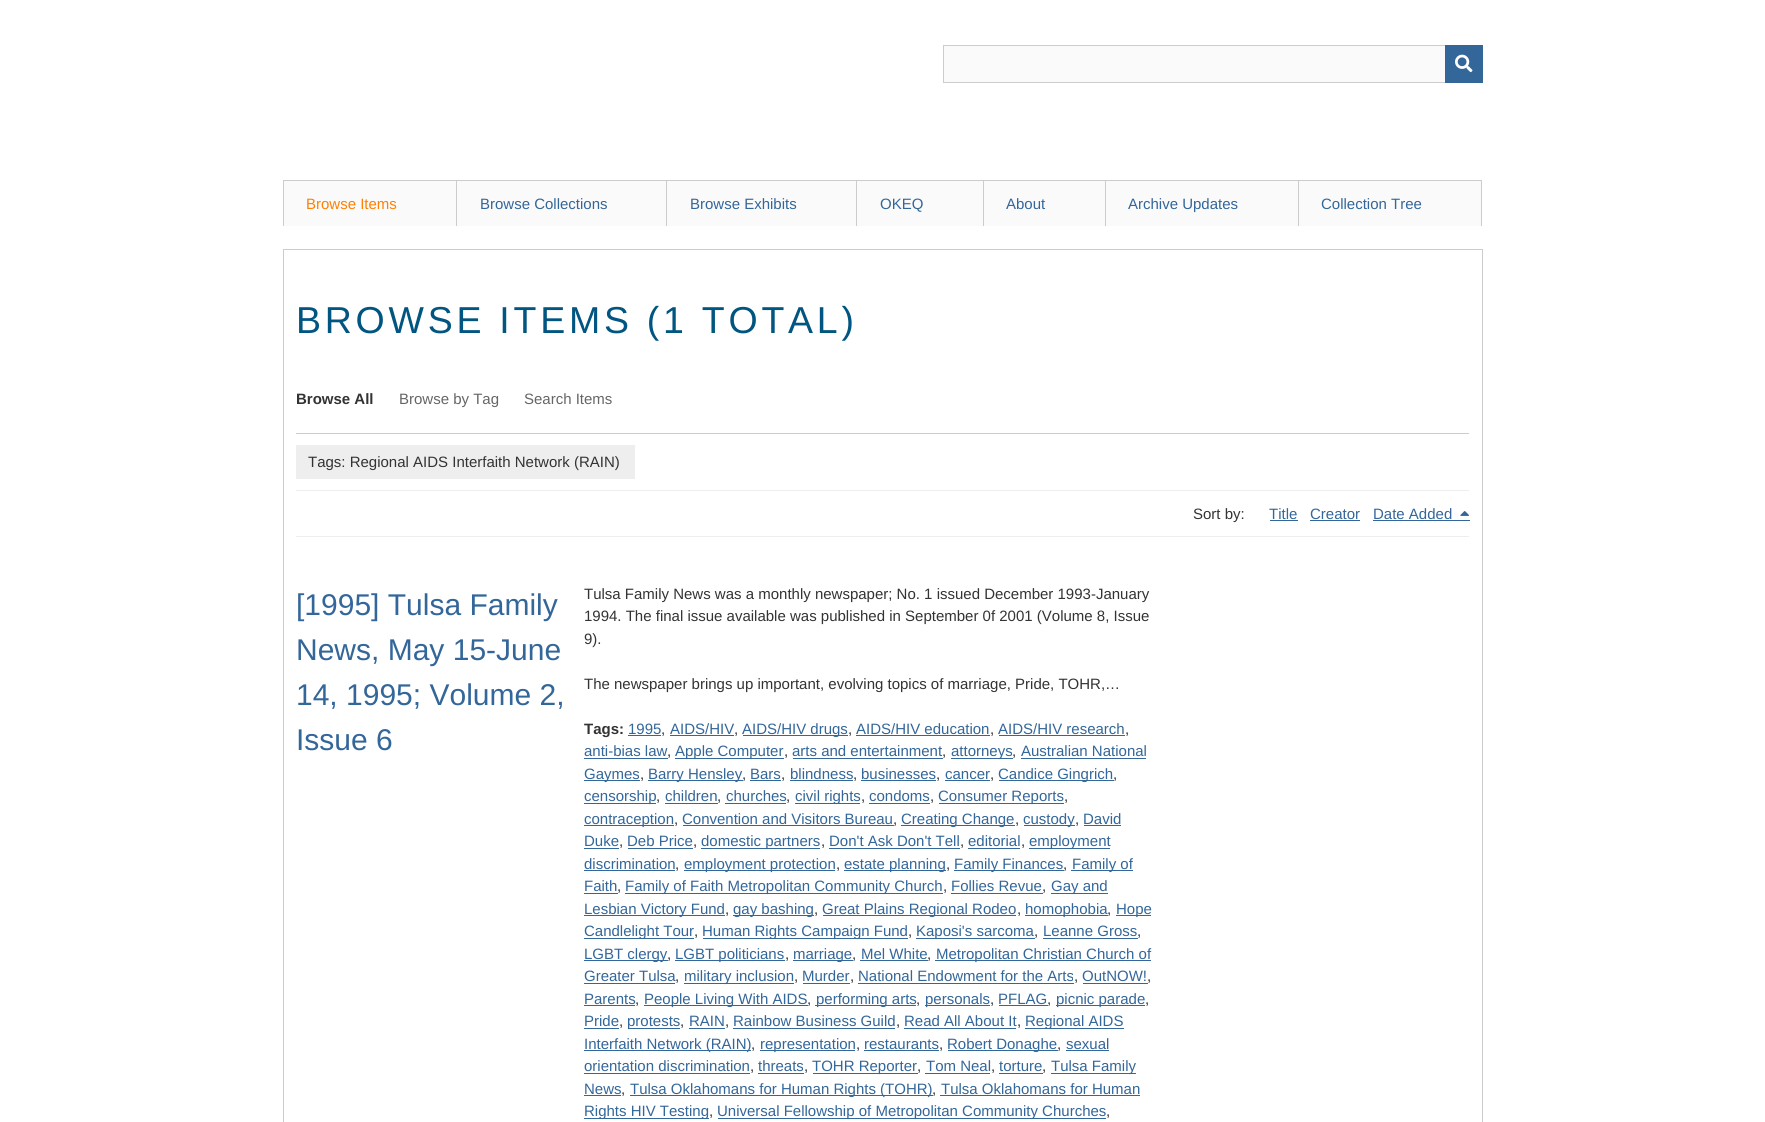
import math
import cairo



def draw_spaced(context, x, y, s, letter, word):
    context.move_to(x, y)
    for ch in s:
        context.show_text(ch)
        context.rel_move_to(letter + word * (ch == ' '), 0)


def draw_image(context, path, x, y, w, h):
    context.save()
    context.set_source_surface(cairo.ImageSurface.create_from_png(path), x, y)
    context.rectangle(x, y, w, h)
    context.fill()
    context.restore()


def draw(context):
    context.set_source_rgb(1, 1, 1)
    context.paint()
    context.set_source_rgb(250 / 255, 250 / 255, 250 / 255)
    context.rectangle(944, 46, 501, 36)
    context.fill()
    context.rectangle(943.5, 45.5, 539, 37)
    context.set_source_rgb(204 / 255, 204 / 255, 204 / 255)
    context.set_line_width(1)
    context.stroke()
    context.set_source_rgb(51 / 255, 102 / 255, 153 / 255)
    context.rectangle(1445, 45, 38, 38)
    context.fill()
    draw_image(context, "images/1.png", 1455, 54, 18, 19)
    context.set_source_rgb(204 / 255, 204 / 255, 204 / 255)
    context.rectangle(1481, 180, 1, 46)
    context.fill()
    context.set_source_rgb(250 / 255, 250 / 255, 250 / 255)
    context.rectangle(284, 181, 172, 45)
    context.fill()
    context.set_source_rgb(204 / 255, 204 / 255, 204 / 255)
    context.rectangle(283, 180, 1198, 1)
    context.fill()
    context.rectangle(283, 180, 1, 46)
    context.fill()
    context.set_source_rgb(250 / 255, 250 / 255, 250 / 255)
    context.rectangle(457, 181, 209, 45)
    context.fill()
    context.set_source_rgb(204 / 255, 204 / 255, 204 / 255)
    context.rectangle(456, 180, 1, 46)
    context.fill()
    context.set_source_rgb(250 / 255, 250 / 255, 250 / 255)
    context.rectangle(667, 181, 189, 45)
    context.fill()
    context.set_source_rgb(204 / 255, 204 / 255, 204 / 255)
    context.rectangle(666, 180, 1, 46)
    context.fill()
    context.set_source_rgb(250 / 255, 250 / 255, 250 / 255)
    context.rectangle(857, 181, 126, 45)
    context.fill()
    context.set_source_rgb(204 / 255, 204 / 255, 204 / 255)
    context.rectangle(856, 180, 1, 46)
    context.fill()
    context.set_source_rgb(250 / 255, 250 / 255, 250 / 255)
    context.rectangle(984, 181, 121, 45)
    context.fill()
    context.set_source_rgb(204 / 255, 204 / 255, 204 / 255)
    context.rectangle(983, 180, 1, 46)
    context.fill()
    context.set_source_rgb(250 / 255, 250 / 255, 250 / 255)
    context.rectangle(1106, 181, 192, 45)
    context.fill()
    context.set_source_rgb(204 / 255, 204 / 255, 204 / 255)
    context.rectangle(1105, 180, 1, 46)
    context.fill()
    context.set_source_rgb(250 / 255, 250 / 255, 250 / 255)
    context.rectangle(1299, 181, 182, 45)
    context.fill()
    context.set_source_rgb(204 / 255, 204 / 255, 204 / 255)
    context.rectangle(1298, 180, 1, 46)
    context.fill()
    context.rectangle(283.5, 249.5, 1199, 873)
    context.stroke()
    context.rectangle(296, 433, 1173, 1)
    context.fill()
    context.set_source_rgb(238 / 255, 238 / 255, 238 / 255)
    context.rectangle(296, 490, 1173, 1)
    context.fill()
    context.rectangle(296, 445, 339, 34)
    context.fill()
    context.set_source_rgb(51 / 255, 102 / 255, 153 / 255)
    context.rectangle(1270, 520, 28, 1)
    context.fill()
    context.rectangle(1310, 520, 50, 1)
    context.fill()
    context.rectangle(1373, 520, 97, 1)
    context.fill()
    draw_image(context, "images/2.png", 1460, 511, 9, 5)
    context.set_source_rgb(238 / 255, 238 / 255, 238 / 255)
    context.rectangle(296, 536, 1173, 1)
    context.fill()
    context.set_source_rgb(51 / 255, 102 / 255, 153 / 255)
    context.rectangle(628, 735, 33, 1)
    context.fill()
    context.rectangle(670, 735, 64, 1)
    context.fill()
    context.rectangle(743, 735, 105, 1)
    context.fill()
    context.rectangle(856, 735, 134, 1)
    context.fill()
    context.rectangle(999, 735, 126, 1)
    context.fill()
    context.rectangle(584, 758, 84, 1)
    context.fill()
    context.rectangle(675, 758, 109, 1)
    context.fill()
    context.rectangle(793, 758, 150, 1)
    context.fill()
    context.rectangle(951, 758, 62, 1)
    context.fill()
    context.rectangle(1021, 758, 125, 1)
    context.fill()
    context.rectangle(584, 780, 56, 1)
    context.fill()
    context.rectangle(648, 780, 95, 1)
    context.fill()
    context.rectangle(750, 780, 31, 1)
    context.fill()
    context.rectangle(790, 780, 63, 1)
    context.fill()
    context.rectangle(861, 780, 75, 1)
    context.fill()
    context.rectangle(945, 780, 45, 1)
    context.fill()
    context.rectangle(999, 780, 115, 1)
    context.fill()
    context.rectangle(584, 803, 72, 1)
    context.fill()
    context.rectangle(665, 803, 53, 1)
    context.fill()
    context.rectangle(725, 803, 61, 1)
    context.fill()
    context.rectangle(795, 803, 65, 1)
    context.fill()
    context.rectangle(869, 803, 61, 1)
    context.fill()
    context.rectangle(939, 803, 125, 1)
    context.fill()
    context.rectangle(584, 825, 90, 1)
    context.fill()
    context.rectangle(683, 825, 211, 1)
    context.fill()
    context.rectangle(901, 825, 114, 1)
    context.fill()
    context.rectangle(1024, 825, 51, 1)
    context.fill()
    context.rectangle(1084, 825, 37, 1)
    context.fill()
    context.rectangle(584, 848, 35, 1)
    context.fill()
    context.rectangle(628, 848, 65, 1)
    context.fill()
    context.rectangle(701, 848, 119, 1)
    context.fill()
    context.rectangle(829, 848, 131, 1)
    context.fill()
    context.rectangle(968, 848, 52, 1)
    context.fill()
    context.rectangle(1029, 848, 81, 1)
    context.fill()
    context.rectangle(584, 870, 91, 1)
    context.fill()
    context.rectangle(684, 870, 151, 1)
    context.fill()
    context.rectangle(844, 870, 102, 1)
    context.fill()
    context.rectangle(954, 870, 110, 1)
    context.fill()
    context.rectangle(1071, 870, 62, 1)
    context.fill()
    context.rectangle(584, 893, 34, 1)
    context.fill()
    context.rectangle(625, 893, 318, 1)
    context.fill()
    context.rectangle(951, 893, 92, 1)
    context.fill()
    context.rectangle(1051, 893, 57, 1)
    context.fill()
    context.rectangle(584, 915, 141, 1)
    context.fill()
    context.rectangle(733, 915, 81, 1)
    context.fill()
    context.rectangle(823, 915, 193, 1)
    context.fill()
    context.rectangle(1025, 915, 83, 1)
    context.fill()
    context.rectangle(1116, 915, 35, 1)
    context.fill()
    context.rectangle(584, 938, 110, 1)
    context.fill()
    context.rectangle(703, 938, 205, 1)
    context.fill()
    context.rectangle(916, 938, 119, 1)
    context.fill()
    context.rectangle(1043, 938, 95, 1)
    context.fill()
    context.rectangle(584, 960, 84, 1)
    context.fill()
    context.rectangle(675, 960, 110, 1)
    context.fill()
    context.rectangle(793, 960, 60, 1)
    context.fill()
    context.rectangle(860, 960, 68, 1)
    context.fill()
    context.rectangle(935, 960, 216, 1)
    context.fill()
    context.rectangle(584, 983, 91, 1)
    context.fill()
    context.rectangle(684, 983, 110, 1)
    context.fill()
    context.rectangle(803, 983, 47, 1)
    context.fill()
    context.rectangle(858, 983, 216, 1)
    context.fill()
    context.rectangle(1083, 983, 65, 1)
    context.fill()
    context.rectangle(584, 1005, 51, 1)
    context.fill()
    context.rectangle(644, 1005, 164, 1)
    context.fill()
    context.rectangle(815, 1005, 101, 1)
    context.fill()
    context.rectangle(925, 1005, 65, 1)
    context.fill()
    context.rectangle(999, 1005, 49, 1)
    context.fill()
    context.rectangle(1056, 1005, 89, 1)
    context.fill()
    context.rectangle(584, 1028, 35, 1)
    context.fill()
    context.rectangle(628, 1028, 52, 1)
    context.fill()
    context.rectangle(689, 1028, 36, 1)
    context.fill()
    context.rectangle(733, 1028, 162, 1)
    context.fill()
    context.rectangle(904, 1028, 112, 1)
    context.fill()
    context.rectangle(1025, 1028, 99, 1)
    context.fill()
    context.rectangle(584, 1050, 167, 1)
    context.fill()
    context.rectangle(760, 1050, 95, 1)
    context.fill()
    context.rectangle(864, 1050, 75, 1)
    context.fill()
    context.rectangle(948, 1050, 110, 1)
    context.fill()
    context.rectangle(1066, 1050, 43, 1)
    context.fill()
    context.rectangle(584, 1073, 166, 1)
    context.fill()
    context.rectangle(758, 1073, 46, 1)
    context.fill()
    context.rectangle(813, 1073, 105, 1)
    context.fill()
    context.rectangle(925, 1073, 65, 1)
    context.fill()
    context.rectangle(999, 1073, 44, 1)
    context.fill()
    context.rectangle(1051, 1073, 85, 1)
    context.fill()
    context.rectangle(584, 1095, 37, 1)
    context.fill()
    context.rectangle(630, 1095, 303, 1)
    context.fill()
    context.rectangle(940, 1095, 200, 1)
    context.fill()
    context.rectangle(584, 1118, 125, 1)
    context.fill()
    context.rectangle(718, 1118, 388, 1)
    context.fill()
    context.select_font_face("Liberation Sans")
    context.set_font_size(15)
    context.set_source_rgb(1, 128 / 255, 0)
    context.move_to(306, 209)
    context.show_text("Browse Items")
    context.set_source_rgb(51 / 255, 102 / 255, 153 / 255)
    context.move_to(480, 209)
    context.show_text("Browse Collections")
    context.move_to(690, 209)
    context.show_text("Browse Exhibits")
    context.move_to(880, 209)
    context.show_text("OKEQ")
    context.move_to(1006, 209)
    context.show_text("About")
    context.move_to(1128, 209)
    context.show_text("Archive Updates")
    context.move_to(1321, 209)
    context.show_text("Collection Tree")
    context.set_font_size(37.5)
    context.set_source_rgb(1 / 255, 85 / 255, 129 / 255)
    draw_spaced(context, 296, 333, "BROWSE ITEMS (1 TOTAL)", 3.75, 0)
    context.select_font_face("Liberation Sans", cairo.FontSlant.NORMAL, cairo.FontWeight.BOLD)
    context.set_font_size(15)
    context.set_source_rgb(51 / 255, 51 / 255, 51 / 255)
    context.move_to(296, 404)
    context.show_text("Browse All")
    context.select_font_face("Liberation Sans")
    context.set_source_rgb(102 / 255, 102 / 255, 102 / 255)
    context.move_to(399, 404)
    context.show_text("Browse by Tag")
    context.move_to(524, 404)
    context.show_text("Search Items")
    context.set_source_rgb(51 / 255, 51 / 255, 51 / 255)
    context.move_to(308, 467)
    context.show_text("Tags: Regional AIDS Interfaith Network (RAIN)")
    context.move_to(1193, 519)
    context.show_text("Sort by:")
    context.set_source_rgb(51 / 255, 102 / 255, 153 / 255)
    context.move_to(1269, 519)
    context.show_text("Title")
    context.move_to(1310, 519)
    context.show_text("Creator")
    context.move_to(1373, 519)
    context.show_text("Date Added")
    context.set_font_size(30)
    context.move_to(296, 615)
    context.show_text("[1995] Tulsa Family")
    context.move_to(296, 660)
    context.show_text("News, May 15-June")
    context.move_to(296, 705)
    context.show_text("14, 1995; Volume 2,")
    context.move_to(296, 750)
    context.show_text("Issue 6")
    context.set_font_size(15)
    context.set_source_rgb(51 / 255, 51 / 255, 51 / 255)
    context.move_to(584, 599)
    context.show_text("Tulsa Family News was a monthly newspaper; No. 1 issued December 1993-January")
    context.move_to(584, 621)
    context.show_text("1994. The final issue available was published in September 0f 2001 (Volume 8, Issue")
    context.move_to(584, 644)
    context.show_text("9).")
    context.move_to(584, 689)
    context.show_text("The newspaper brings up important, evolving topics of marriage, Pride, TOHR,…")
    context.select_font_face("Liberation Sans", cairo.FontSlant.NORMAL, cairo.FontWeight.BOLD)
    context.move_to(584, 734)
    context.show_text("Tags:")
    context.select_font_face("Liberation Sans")
    context.set_source_rgb(51 / 255, 102 / 255, 153 / 255)
    context.move_to(628, 734)
    context.show_text("1995")
    context.set_source_rgb(51 / 255, 51 / 255, 51 / 255)
    context.move_to(661, 734)
    context.show_text(",")
    context.set_source_rgb(51 / 255, 102 / 255, 153 / 255)
    context.move_to(670, 734)
    context.show_text("AIDS/HIV")
    context.set_source_rgb(51 / 255, 51 / 255, 51 / 255)
    context.move_to(734, 734)
    context.show_text(",")
    context.set_source_rgb(51 / 255, 102 / 255, 153 / 255)
    context.move_to(742, 734)
    context.show_text("AIDS/HIV drugs")
    context.set_source_rgb(51 / 255, 51 / 255, 51 / 255)
    context.move_to(848, 734)
    context.show_text(",")
    context.set_source_rgb(51 / 255, 102 / 255, 153 / 255)
    context.move_to(856, 734)
    context.show_text("AIDS/HIV education")
    context.set_source_rgb(51 / 255, 51 / 255, 51 / 255)
    context.move_to(990, 734)
    context.show_text(",")
    context.set_source_rgb(51 / 255, 102 / 255, 153 / 255)
    context.move_to(998, 734)
    context.show_text("AIDS/HIV research")
    context.set_source_rgb(51 / 255, 51 / 255, 51 / 255)
    context.move_to(1125, 734)
    context.show_text(",")
    context.set_source_rgb(51 / 255, 102 / 255, 153 / 255)
    context.move_to(584, 756)
    context.show_text("anti-bias law")
    context.set_source_rgb(51 / 255, 51 / 255, 51 / 255)
    context.move_to(667, 756)
    context.show_text(",")
    context.set_source_rgb(51 / 255, 102 / 255, 153 / 255)
    context.move_to(675, 756)
    context.show_text("Apple Computer")
    context.set_source_rgb(51 / 255, 51 / 255, 51 / 255)
    context.move_to(784, 756)
    context.show_text(",")
    context.set_source_rgb(51 / 255, 102 / 255, 153 / 255)
    context.move_to(792, 756)
    context.show_text("arts and entertainment")
    context.set_source_rgb(51 / 255, 51 / 255, 51 / 255)
    context.move_to(942, 756)
    context.show_text(",")
    context.set_source_rgb(51 / 255, 102 / 255, 153 / 255)
    context.move_to(951, 756)
    context.show_text("attorneys")
    context.set_source_rgb(51 / 255, 51 / 255, 51 / 255)
    context.move_to(1012, 756)
    context.show_text(",")
    context.set_source_rgb(51 / 255, 102 / 255, 153 / 255)
    context.move_to(1021, 756)
    context.show_text("Australian National")
    context.move_to(584, 779)
    context.show_text("Gaymes")
    context.set_source_rgb(51 / 255, 51 / 255, 51 / 255)
    context.move_to(640, 779)
    context.show_text(",")
    context.set_source_rgb(51 / 255, 102 / 255, 153 / 255)
    context.move_to(648, 779)
    context.show_text("Barry Hensley")
    context.set_source_rgb(51 / 255, 51 / 255, 51 / 255)
    context.move_to(742, 779)
    context.show_text(",")
    context.set_source_rgb(51 / 255, 102 / 255, 153 / 255)
    context.move_to(750, 779)
    context.show_text("Bars")
    context.set_source_rgb(51 / 255, 51 / 255, 51 / 255)
    context.move_to(781, 779)
    context.show_text(",")
    context.set_source_rgb(51 / 255, 102 / 255, 153 / 255)
    context.move_to(790, 779)
    context.show_text("blindness")
    context.set_source_rgb(51 / 255, 51 / 255, 51 / 255)
    context.move_to(853, 779)
    context.show_text(",")
    context.set_source_rgb(51 / 255, 102 / 255, 153 / 255)
    context.move_to(861, 779)
    context.show_text("businesses")
    context.set_source_rgb(51 / 255, 51 / 255, 51 / 255)
    context.move_to(936, 779)
    context.show_text(",")
    context.set_source_rgb(51 / 255, 102 / 255, 153 / 255)
    context.move_to(945, 779)
    context.show_text("cancer")
    context.set_source_rgb(51 / 255, 51 / 255, 51 / 255)
    context.move_to(990, 779)
    context.show_text(",")
    context.set_source_rgb(51 / 255, 102 / 255, 153 / 255)
    context.move_to(998, 779)
    context.show_text("Candice Gingrich")
    context.set_source_rgb(51 / 255, 51 / 255, 51 / 255)
    context.move_to(1113, 779)
    context.show_text(",")
    context.set_source_rgb(51 / 255, 102 / 255, 153 / 255)
    context.move_to(584, 801)
    context.show_text("censorship")
    context.set_source_rgb(51 / 255, 51 / 255, 51 / 255)
    context.move_to(656, 801)
    context.show_text(",")
    context.set_source_rgb(51 / 255, 102 / 255, 153 / 255)
    context.move_to(665, 801)
    context.show_text("children")
    context.set_source_rgb(51 / 255, 51 / 255, 51 / 255)
    context.move_to(717, 801)
    context.show_text(",")
    context.set_source_rgb(51 / 255, 102 / 255, 153 / 255)
    context.move_to(726, 801)
    context.show_text("churches")
    context.set_source_rgb(51 / 255, 51 / 255, 51 / 255)
    context.move_to(786, 801)
    context.show_text(",")
    context.set_source_rgb(51 / 255, 102 / 255, 153 / 255)
    context.move_to(795, 801)
    context.show_text("civil rights")
    context.set_source_rgb(51 / 255, 51 / 255, 51 / 255)
    context.move_to(861, 801)
    context.show_text(",")
    context.set_source_rgb(51 / 255, 102 / 255, 153 / 255)
    context.move_to(869, 801)
    context.show_text("condoms")
    context.set_source_rgb(51 / 255, 51 / 255, 51 / 255)
    context.move_to(930, 801)
    context.show_text(",")
    context.set_source_rgb(51 / 255, 102 / 255, 153 / 255)
    context.move_to(938, 801)
    context.show_text("Consumer Reports")
    context.set_source_rgb(51 / 255, 51 / 255, 51 / 255)
    context.move_to(1064, 801)
    context.show_text(",")
    context.set_source_rgb(51 / 255, 102 / 255, 153 / 255)
    context.move_to(584, 824)
    context.show_text("contraception")
    context.set_source_rgb(51 / 255, 51 / 255, 51 / 255)
    context.move_to(674, 824)
    context.show_text(",")
    context.set_source_rgb(51 / 255, 102 / 255, 153 / 255)
    context.move_to(682, 824)
    context.show_text("Convention and Visitors Bureau")
    context.set_source_rgb(51 / 255, 51 / 255, 51 / 255)
    context.move_to(893, 824)
    context.show_text(",")
    context.set_source_rgb(51 / 255, 102 / 255, 153 / 255)
    context.move_to(901, 824)
    context.show_text("Creating Change")
    context.set_source_rgb(51 / 255, 51 / 255, 51 / 255)
    context.move_to(1015, 824)
    context.show_text(",")
    context.set_source_rgb(51 / 255, 102 / 255, 153 / 255)
    context.move_to(1023, 824)
    context.show_text("custody")
    context.set_source_rgb(51 / 255, 51 / 255, 51 / 255)
    context.move_to(1075, 824)
    context.show_text(",")
    context.set_source_rgb(51 / 255, 102 / 255, 153 / 255)
    context.move_to(1083, 824)
    context.show_text("David")
    context.move_to(584, 846)
    context.show_text("Duke")
    context.set_source_rgb(51 / 255, 51 / 255, 51 / 255)
    context.move_to(619, 846)
    context.show_text(",")
    context.set_source_rgb(51 / 255, 102 / 255, 153 / 255)
    context.move_to(627, 846)
    context.show_text("Deb Price")
    context.set_source_rgb(51 / 255, 51 / 255, 51 / 255)
    context.move_to(693, 846)
    context.show_text(",")
    context.set_source_rgb(51 / 255, 102 / 255, 153 / 255)
    context.move_to(701, 846)
    context.show_text("domestic partners")
    context.set_source_rgb(51 / 255, 51 / 255, 51 / 255)
    context.move_to(821, 846)
    context.show_text(",")
    context.set_source_rgb(51 / 255, 102 / 255, 153 / 255)
    context.move_to(829, 846)
    context.show_text("Don't Ask Don't Tell")
    context.set_source_rgb(51 / 255, 51 / 255, 51 / 255)
    context.move_to(960, 846)
    context.show_text(",")
    context.set_source_rgb(51 / 255, 102 / 255, 153 / 255)
    context.move_to(968, 846)
    context.show_text("editorial")
    context.set_source_rgb(51 / 255, 51 / 255, 51 / 255)
    context.move_to(1021, 846)
    context.show_text(",")
    context.set_source_rgb(51 / 255, 102 / 255, 153 / 255)
    context.move_to(1029, 846)
    context.show_text("employment")
    context.move_to(584, 869)
    context.show_text("discrimination")
    context.set_source_rgb(51 / 255, 51 / 255, 51 / 255)
    context.move_to(675, 869)
    context.show_text(",")
    context.set_source_rgb(51 / 255, 102 / 255, 153 / 255)
    context.move_to(684, 869)
    context.show_text("employment protection")
    context.set_source_rgb(51 / 255, 51 / 255, 51 / 255)
    context.move_to(836, 869)
    context.show_text(",")
    context.set_source_rgb(51 / 255, 102 / 255, 153 / 255)
    context.move_to(844, 869)
    context.show_text("estate planning")
    context.set_source_rgb(51 / 255, 51 / 255, 51 / 255)
    context.move_to(946, 869)
    context.show_text(",")
    context.set_source_rgb(51 / 255, 102 / 255, 153 / 255)
    context.move_to(954, 869)
    context.show_text("Family Finances")
    context.set_source_rgb(51 / 255, 51 / 255, 51 / 255)
    context.move_to(1063, 869)
    context.show_text(",")
    context.set_source_rgb(51 / 255, 102 / 255, 153 / 255)
    context.move_to(1072, 869)
    context.show_text("Family of")
    context.move_to(584, 891)
    context.show_text("Faith")
    context.set_source_rgb(51 / 255, 51 / 255, 51 / 255)
    context.move_to(617, 891)
    context.show_text(",")
    context.set_source_rgb(51 / 255, 102 / 255, 153 / 255)
    context.move_to(625, 891)
    context.show_text("Family of Faith Metropolitan Community Church")
    context.set_source_rgb(51 / 255, 51 / 255, 51 / 255)
    context.move_to(943, 891)
    context.show_text(",")
    context.set_source_rgb(51 / 255, 102 / 255, 153 / 255)
    context.move_to(951, 891)
    context.show_text("Follies Revue")
    context.set_source_rgb(51 / 255, 51 / 255, 51 / 255)
    context.move_to(1042, 891)
    context.show_text(",")
    context.set_source_rgb(51 / 255, 102 / 255, 153 / 255)
    context.move_to(1051, 891)
    context.show_text("Gay and")
    context.move_to(584, 914)
    context.show_text("Lesbian Victory Fund")
    context.set_source_rgb(51 / 255, 51 / 255, 51 / 255)
    context.move_to(725, 914)
    context.show_text(",")
    context.set_source_rgb(51 / 255, 102 / 255, 153 / 255)
    context.move_to(733, 914)
    context.show_text("gay bashing")
    context.set_source_rgb(51 / 255, 51 / 255, 51 / 255)
    context.move_to(814, 914)
    context.show_text(",")
    context.set_source_rgb(51 / 255, 102 / 255, 153 / 255)
    context.move_to(822, 914)
    context.show_text("Great Plains Regional Rodeo")
    context.set_source_rgb(51 / 255, 51 / 255, 51 / 255)
    context.move_to(1017, 914)
    context.show_text(",")
    context.set_source_rgb(51 / 255, 102 / 255, 153 / 255)
    context.move_to(1025, 914)
    context.show_text("homophobia")
    context.set_source_rgb(51 / 255, 51 / 255, 51 / 255)
    context.move_to(1107, 914)
    context.show_text(",")
    context.set_source_rgb(51 / 255, 102 / 255, 153 / 255)
    context.move_to(1116, 914)
    context.show_text("Hope")
    context.move_to(584, 936)
    context.show_text("Candlelight Tour")
    context.set_source_rgb(51 / 255, 51 / 255, 51 / 255)
    context.move_to(694, 936)
    context.show_text(",")
    context.set_source_rgb(51 / 255, 102 / 255, 153 / 255)
    context.move_to(702, 936)
    context.show_text("Human Rights Campaign Fund")
    context.set_source_rgb(51 / 255, 51 / 255, 51 / 255)
    context.move_to(908, 936)
    context.show_text(",")
    context.set_source_rgb(51 / 255, 102 / 255, 153 / 255)
    context.move_to(916, 936)
    context.show_text("Kaposi's sarcoma")
    context.set_source_rgb(51 / 255, 51 / 255, 51 / 255)
    context.move_to(1034, 936)
    context.show_text(",")
    context.set_source_rgb(51 / 255, 102 / 255, 153 / 255)
    context.move_to(1043, 936)
    context.show_text("Leanne Gross")
    context.set_source_rgb(51 / 255, 51 / 255, 51 / 255)
    context.move_to(1137, 936)
    context.show_text(",")
    context.set_source_rgb(51 / 255, 102 / 255, 153 / 255)
    context.move_to(584, 959)
    context.show_text("LGBT clergy")
    context.set_source_rgb(51 / 255, 51 / 255, 51 / 255)
    context.move_to(667, 959)
    context.show_text(",")
    context.set_source_rgb(51 / 255, 102 / 255, 153 / 255)
    context.move_to(675, 959)
    context.show_text("LGBT politicians")
    context.set_source_rgb(51 / 255, 51 / 255, 51 / 255)
    context.move_to(785, 959)
    context.show_text(",")
    context.set_source_rgb(51 / 255, 102 / 255, 153 / 255)
    context.move_to(793, 959)
    context.show_text("marriage")
    context.set_source_rgb(51 / 255, 51 / 255, 51 / 255)
    context.move_to(852, 959)
    context.show_text(",")
    context.set_source_rgb(51 / 255, 102 / 255, 153 / 255)
    context.move_to(861, 959)
    context.show_text("Mel White")
    context.set_source_rgb(51 / 255, 51 / 255, 51 / 255)
    context.move_to(927, 959)
    context.show_text(",")
    context.set_source_rgb(51 / 255, 102 / 255, 153 / 255)
    context.move_to(936, 959)
    context.show_text("Metropolitan Christian Church of")
    context.move_to(584, 981)
    context.show_text("Greater Tulsa")
    context.set_source_rgb(51 / 255, 51 / 255, 51 / 255)
    context.move_to(675, 981)
    context.show_text(",")
    context.set_source_rgb(51 / 255, 102 / 255, 153 / 255)
    context.move_to(684, 981)
    context.show_text("military inclusion")
    context.set_source_rgb(51 / 255, 51 / 255, 51 / 255)
    context.move_to(794, 981)
    context.show_text(",")
    context.set_source_rgb(51 / 255, 102 / 255, 153 / 255)
    context.move_to(802, 981)
    context.show_text("Murder")
    context.set_source_rgb(51 / 255, 51 / 255, 51 / 255)
    context.move_to(850, 981)
    context.show_text(",")
    context.set_source_rgb(51 / 255, 102 / 255, 153 / 255)
    context.move_to(858, 981)
    context.show_text("National Endowment for the Arts")
    context.set_source_rgb(51 / 255, 51 / 255, 51 / 255)
    context.move_to(1074, 981)
    context.show_text(",")
    context.set_source_rgb(51 / 255, 102 / 255, 153 / 255)
    context.move_to(1082, 981)
    context.show_text("OutNOW!")
    context.set_source_rgb(51 / 255, 51 / 255, 51 / 255)
    context.move_to(1147, 981)
    context.show_text(",")
    context.set_source_rgb(51 / 255, 102 / 255, 153 / 255)
    context.move_to(584, 1004)
    context.show_text("Parents")
    context.set_source_rgb(51 / 255, 51 / 255, 51 / 255)
    context.move_to(635, 1004)
    context.show_text(",")
    context.set_source_rgb(51 / 255, 102 / 255, 153 / 255)
    context.move_to(644, 1004)
    context.show_text("People Living With AIDS")
    context.set_source_rgb(51 / 255, 51 / 255, 51 / 255)
    context.move_to(807, 1004)
    context.show_text(",")
    context.set_source_rgb(51 / 255, 102 / 255, 153 / 255)
    context.move_to(816, 1004)
    context.show_text("performing arts")
    context.set_source_rgb(51 / 255, 51 / 255, 51 / 255)
    context.move_to(916, 1004)
    context.show_text(",")
    context.set_source_rgb(51 / 255, 102 / 255, 153 / 255)
    context.move_to(925, 1004)
    context.show_text("personals")
    context.set_source_rgb(51 / 255, 51 / 255, 51 / 255)
    context.move_to(990, 1004)
    context.show_text(",")
    context.set_source_rgb(51 / 255, 102 / 255, 153 / 255)
    context.move_to(998, 1004)
    context.show_text("PFLAG")
    context.set_source_rgb(51 / 255, 51 / 255, 51 / 255)
    context.move_to(1047, 1004)
    context.show_text(",")
    context.set_source_rgb(51 / 255, 102 / 255, 153 / 255)
    context.move_to(1056, 1004)
    context.show_text("picnic parade")
    context.set_source_rgb(51 / 255, 51 / 255, 51 / 255)
    context.move_to(1145, 1004)
    context.show_text(",")
    context.set_source_rgb(51 / 255, 102 / 255, 153 / 255)
    context.move_to(584, 1026)
    context.show_text("Pride")
    context.set_source_rgb(51 / 255, 51 / 255, 51 / 255)
    context.move_to(619, 1026)
    context.show_text(",")
    context.set_source_rgb(51 / 255, 102 / 255, 153 / 255)
    context.move_to(627, 1026)
    context.show_text("protests")
    context.set_source_rgb(51 / 255, 51 / 255, 51 / 255)
    context.move_to(680, 1026)
    context.show_text(",")
    context.set_source_rgb(51 / 255, 102 / 255, 153 / 255)
    context.move_to(689, 1026)
    context.show_text("RAIN")
    context.set_source_rgb(51 / 255, 51 / 255, 51 / 255)
    context.move_to(725, 1026)
    context.show_text(",")
    context.set_source_rgb(51 / 255, 102 / 255, 153 / 255)
    context.move_to(733, 1026)
    context.show_text("Rainbow Business Guild")
    context.set_source_rgb(51 / 255, 51 / 255, 51 / 255)
    context.move_to(896, 1026)
    context.show_text(",")
    context.set_source_rgb(51 / 255, 102 / 255, 153 / 255)
    context.move_to(904, 1026)
    context.show_text("Read All About It")
    context.set_source_rgb(51 / 255, 51 / 255, 51 / 255)
    context.move_to(1017, 1026)
    context.show_text(",")
    context.set_source_rgb(51 / 255, 102 / 255, 153 / 255)
    context.move_to(1025, 1026)
    context.show_text("Regional AIDS")
    context.move_to(584, 1049)
    context.show_text("Interfaith Network (RAIN)")
    context.set_source_rgb(51 / 255, 51 / 255, 51 / 255)
    context.move_to(751, 1049)
    context.show_text(",")
    context.set_source_rgb(51 / 255, 102 / 255, 153 / 255)
    context.move_to(760, 1049)
    context.show_text("representation")
    context.set_source_rgb(51 / 255, 51 / 255, 51 / 255)
    context.move_to(856, 1049)
    context.show_text(",")
    context.set_source_rgb(51 / 255, 102 / 255, 153 / 255)
    context.move_to(864, 1049)
    context.show_text("restaurants")
    context.set_source_rgb(51 / 255, 51 / 255, 51 / 255)
    context.move_to(939, 1049)
    context.show_text(",")
    context.set_source_rgb(51 / 255, 102 / 255, 153 / 255)
    context.move_to(947, 1049)
    context.show_text("Robert Donaghe")
    context.set_source_rgb(51 / 255, 51 / 255, 51 / 255)
    context.move_to(1057, 1049)
    context.show_text(",")
    context.set_source_rgb(51 / 255, 102 / 255, 153 / 255)
    context.move_to(1066, 1049)
    context.show_text("sexual")
    context.move_to(584, 1071)
    context.show_text("orientation discrimination")
    context.set_source_rgb(51 / 255, 51 / 255, 51 / 255)
    context.move_to(750, 1071)
    context.show_text(",")
    context.set_source_rgb(51 / 255, 102 / 255, 153 / 255)
    context.move_to(758, 1071)
    context.show_text("threats")
    context.set_source_rgb(51 / 255, 51 / 255, 51 / 255)
    context.move_to(804, 1071)
    context.show_text(",")
    context.set_source_rgb(51 / 255, 102 / 255, 153 / 255)
    context.move_to(812, 1071)
    context.show_text("TOHR Reporter")
    context.set_source_rgb(51 / 255, 51 / 255, 51 / 255)
    context.move_to(917, 1071)
    context.show_text(",")
    context.set_source_rgb(51 / 255, 102 / 255, 153 / 255)
    context.move_to(926, 1071)
    context.show_text("Tom Neal")
    context.set_source_rgb(51 / 255, 51 / 255, 51 / 255)
    context.move_to(991, 1071)
    context.show_text(",")
    context.set_source_rgb(51 / 255, 102 / 255, 153 / 255)
    context.move_to(999, 1071)
    context.show_text("torture")
    context.set_source_rgb(51 / 255, 51 / 255, 51 / 255)
    context.move_to(1042, 1071)
    context.show_text(",")
    context.set_source_rgb(51 / 255, 102 / 255, 153 / 255)
    context.move_to(1051, 1071)
    context.show_text("Tulsa Family")
    context.move_to(584, 1094)
    context.show_text("News")
    context.set_source_rgb(51 / 255, 51 / 255, 51 / 255)
    context.move_to(621, 1094)
    context.show_text(",")
    context.set_source_rgb(51 / 255, 102 / 255, 153 / 255)
    context.move_to(630, 1094)
    context.show_text("Tulsa Oklahomans for Human Rights (TOHR)")
    context.set_source_rgb(51 / 255, 51 / 255, 51 / 255)
    context.move_to(932, 1094)
    context.show_text(",")
    context.set_source_rgb(51 / 255, 102 / 255, 153 / 255)
    context.move_to(941, 1094)
    context.show_text("Tulsa Oklahomans for Human")
    context.move_to(584, 1116)
    context.show_text("Rights HIV Testing")
    context.set_source_rgb(51 / 255, 51 / 255, 51 / 255)
    context.move_to(709, 1116)
    context.show_text(",")
    context.set_source_rgb(51 / 255, 102 / 255, 153 / 255)
    context.move_to(717, 1116)
    context.show_text("Universal Fellowship of Metropolitan Community Churches")
    context.set_source_rgb(51 / 255, 51 / 255, 51 / 255)
    context.move_to(1106, 1116)
    context.show_text(",")


surface = cairo.ImageSurface(cairo.Format.RGB24, 1765, 1122)
context = cairo.Context(surface)
options = cairo.FontOptions()
options.set_hint_metrics(cairo.HintMetrics.OFF)
options.set_hint_style(cairo.HintStyle.NONE)
context.set_font_options(options)
context.set_miter_limit(4)
draw(context)
surface.write_to_png("out.png")
